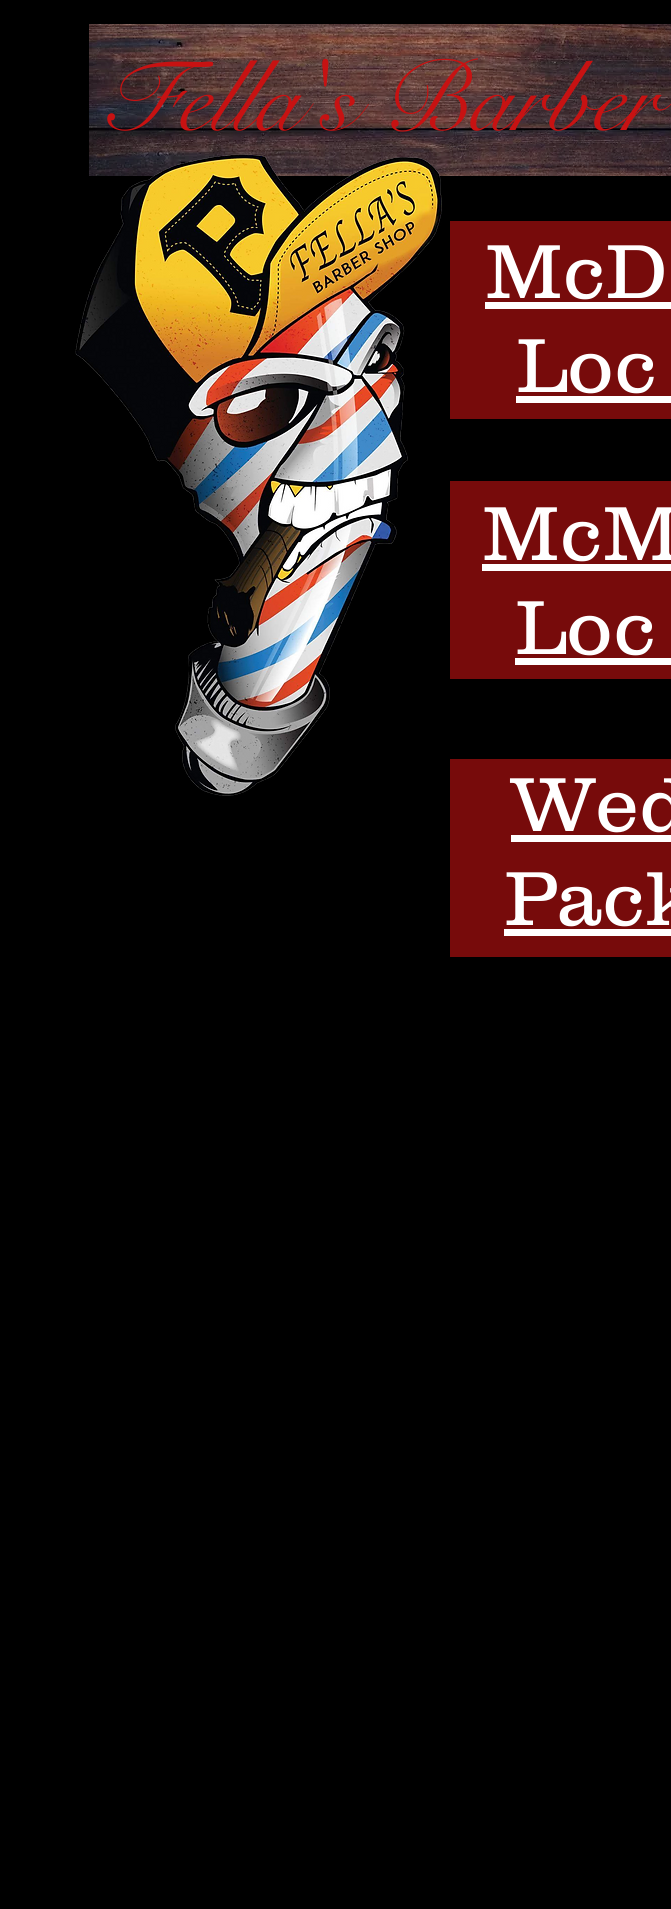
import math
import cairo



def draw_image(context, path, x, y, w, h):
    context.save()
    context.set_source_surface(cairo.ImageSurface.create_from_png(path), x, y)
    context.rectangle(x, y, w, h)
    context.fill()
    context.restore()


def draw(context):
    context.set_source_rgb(0, 0, 0)
    context.paint()
    draw_image(context, "images/1.png", 89, 24, 582, 152)
    draw_image(context, "images/2.png", 75, 154, 367, 642)
    context.set_source_rgb(119 / 255, 11 / 255, 11 / 255)
    context.rectangle(450, 221, 221, 198)
    context.fill()
    context.set_source_rgb(1, 1, 1)
    context.rectangle(485, 302, 186, 7)
    context.fill()
    context.rectangle(516, 396, 155, 7)
    context.fill()
    context.set_source_rgb(119 / 255, 11 / 255, 11 / 255)
    context.rectangle(450, 481, 221, 198)
    context.fill()
    context.set_source_rgb(1, 1, 1)
    context.rectangle(482, 564, 189, 7)
    context.fill()
    context.rectangle(515, 658, 156, 7)
    context.fill()
    context.set_source_rgb(119 / 255, 11 / 255, 11 / 255)
    context.rectangle(450, 759, 221, 198)
    context.fill()
    context.set_source_rgb(1, 1, 1)
    context.rectangle(511, 835, 160, 7)
    context.fill()
    context.rectangle(504, 929, 167, 7)
    context.fill()
    context.select_font_face("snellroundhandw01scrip")
    context.set_font_size(100)
    context.set_source_rgb(199 / 255, 18 / 255, 18 / 255)
    context.move_to(101, 130)
    context.show_text("Fella's Barber")
    context.select_font_face("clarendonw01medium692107 Light")
    context.set_font_size(79)
    context.set_source_rgb(1, 1, 1)
    context.move_to(485, 298)
    context.show_text("McD")
    context.move_to(516, 392)
    context.show_text("Loc")
    context.move_to(482, 560)
    context.show_text("McM")
    context.move_to(515, 654)
    context.show_text("Loc")
    context.move_to(511, 831)
    context.show_text("Wed")
    context.move_to(504, 925)
    context.show_text("Pack")


surface = cairo.ImageSurface(cairo.Format.RGB24, 671, 1909)
context = cairo.Context(surface)
options = cairo.FontOptions()
options.set_hint_metrics(cairo.HintMetrics.OFF)
options.set_hint_style(cairo.HintStyle.NONE)
context.set_font_options(options)
context.set_miter_limit(4)
draw(context)
surface.write_to_png("out.png")
